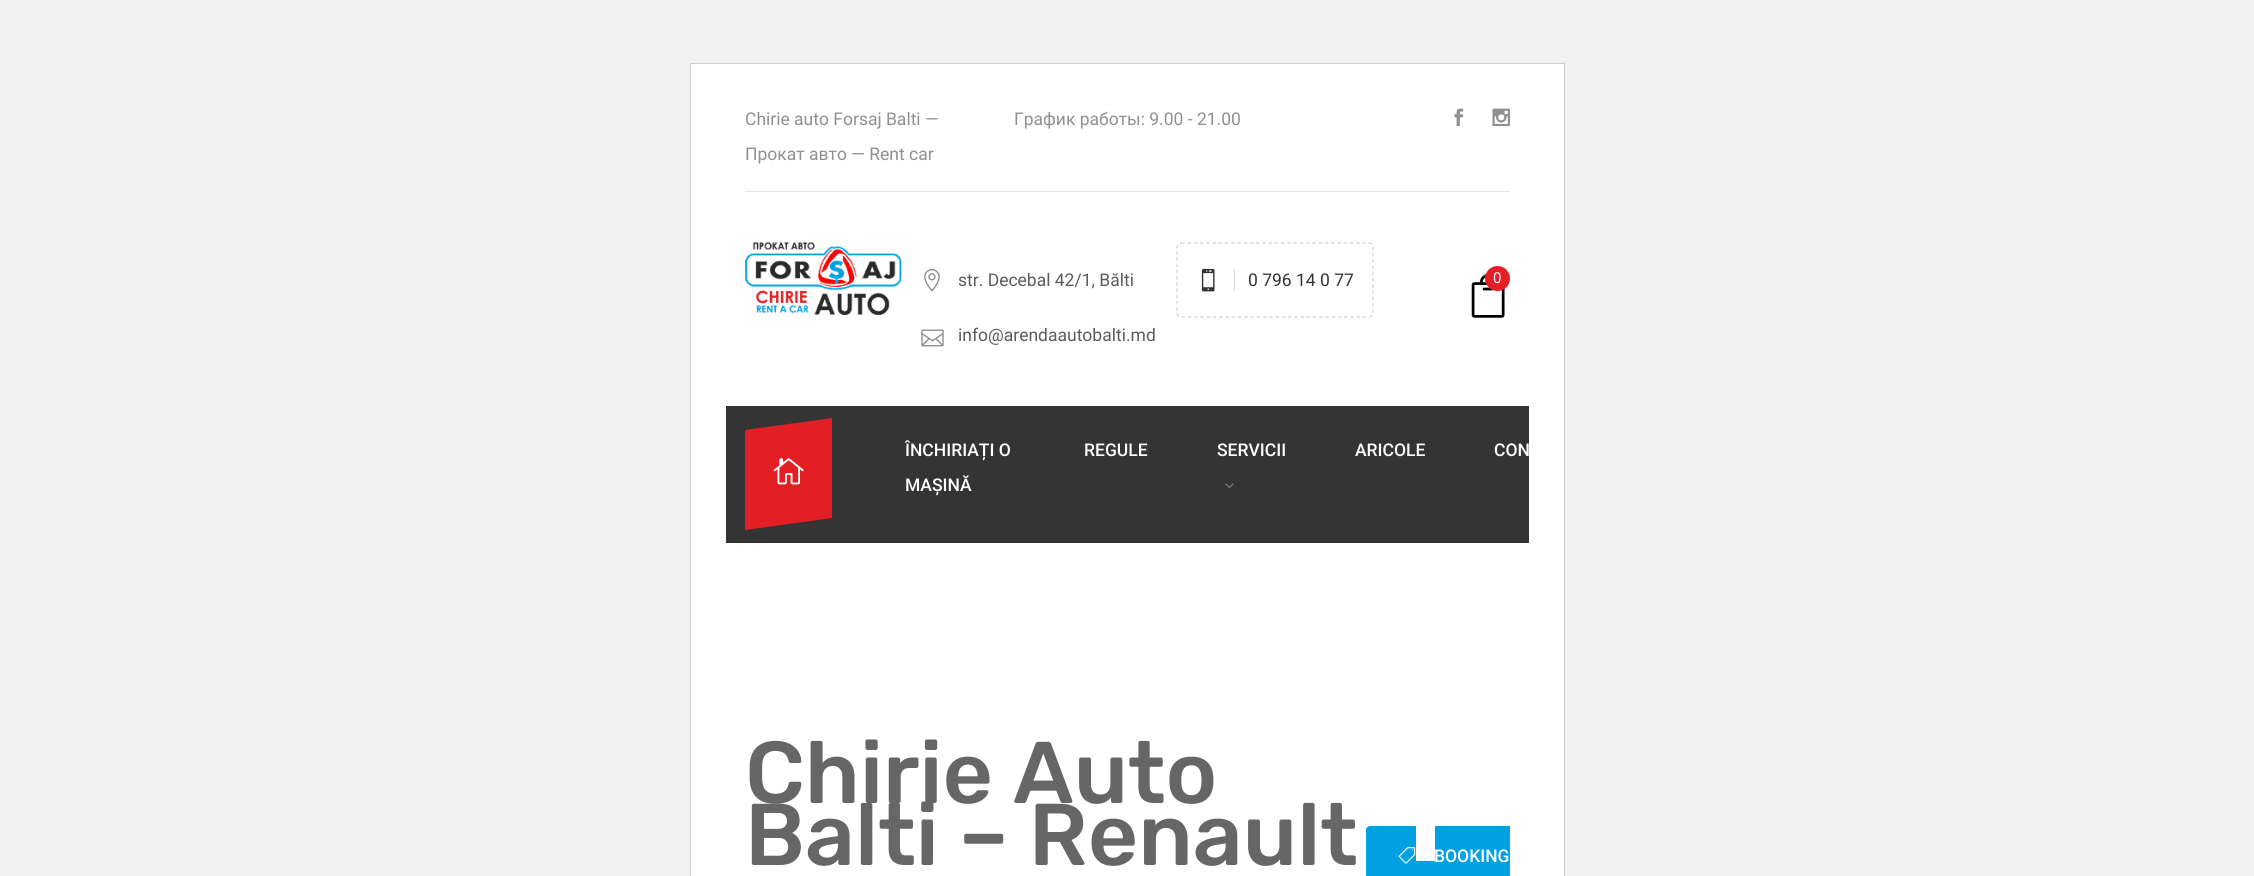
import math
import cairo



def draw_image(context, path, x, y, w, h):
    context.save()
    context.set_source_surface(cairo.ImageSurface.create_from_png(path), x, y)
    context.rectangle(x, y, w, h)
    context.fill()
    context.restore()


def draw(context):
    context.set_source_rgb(241 / 255, 241 / 255, 241 / 255)
    context.paint()
    context.set_source_rgb(1, 1, 1)
    context.rectangle(690.5, 63.5, 874, 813)
    context.fill_preserve()
    context.set_source_rgb(204 / 255, 208 / 255, 212 / 255)
    context.set_line_width(1)
    context.stroke()
    draw_image(context, "images/1.png", 1454, 108, 10, 19)
    draw_image(context, "images/2.png", 1492, 108, 18, 19)
    context.set_source_rgb(230 / 255, 230 / 255, 230 / 255)
    context.rectangle(745, 191, 765, 1)
    context.fill()
    draw_image(context, "images/3.png", 745, 242, 157, 73)
    draw_image(context, "images/4.png", 924, 268, 16, 24)
    context.new_path()
    context.move_to(1181, 243)
    context.line_to(1369, 243)
    context.curve_to(1371, 243, 1373, 245, 1373, 247.5)
    context.line_to(1373, 312.5)
    context.curve_to(1373, 315, 1371, 317, 1369, 317)
    context.line_to(1181, 317)
    context.curve_to(1179, 317, 1177, 315, 1177, 312.5)
    context.line_to(1177, 247.5)
    context.curve_to(1177, 245, 1179, 243, 1181, 243)
    context.close_path()
    context.set_source_rgb(211 / 255, 210 / 255, 210 / 255)
    context.set_line_width(1.2)
    context.set_dash([3.75, 2.5])
    context.stroke()
    context.set_source_rgb(220 / 255, 219 / 255, 219 / 255)
    context.rectangle(1234, 269, 1, 22)
    context.fill()
    draw_image(context, "images/5.png", 1201, 268, 14, 24)
    draw_image(context, "images/6.png", 921, 329, 23, 18)
    draw_image(context, "images/7.png", 1471, 274, 34, 44)
    context.set_source_rgb(227 / 255, 30 / 255, 36 / 255)
    context.arc(1497.5, 278.5, 12.5, 0, 2 * math.pi)
    context.fill()
    context.set_source_rgb(52 / 255, 52 / 255, 52 / 255)
    context.rectangle(726, 406, 803, 137)
    context.fill()
    context.set_source_rgb(227 / 255, 30 / 255, 36 / 255)
    context.new_path()
    context.move_to(745, 430)
    context.line_to(832, 418)
    context.line_to(832, 518)
    context.line_to(745, 530)
    context.close_path()
    context.fill()
    draw_image(context, "images/8.png", 773, 458, 31, 27)
    draw_image(context, "images/9.png", 1225, 483, 9, 5)
    context.set_source_rgb(0, 160 / 255, 227 / 255)
    context.new_path()
    context.move_to(1371, 826)
    context.line_to(1416, 826)
    context.line_to(1416, 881)
    context.line_to(1371, 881)
    context.curve_to(1368, 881, 1366, 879, 1366, 876)
    context.line_to(1366, 831)
    context.curve_to(1366, 828, 1368, 826, 1371, 826)
    context.close_path()
    context.fill()
    context.set_fill_rule(cairo.FillRule.EVEN_ODD)
    context.new_path()
    context.move_to(1371, 826)
    context.line_to(1416, 826)
    context.line_to(1416, 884)
    context.line_to(1371, 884)
    context.curve_to(1368, 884, 1366, 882, 1366, 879)
    context.line_to(1366, 831)
    context.curve_to(1366, 828, 1368, 826, 1371, 826)
    context.close_path()
    context.move_to(1371, 828)
    context.line_to(1416, 828)
    context.line_to(1416, 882)
    context.line_to(1371, 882)
    context.curve_to(1369, 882, 1368, 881, 1368, 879)
    context.line_to(1368, 831)
    context.curve_to(1368, 829, 1369, 828, 1371, 828)
    context.close_path()
    context.fill()
    context.rectangle(1435, 826, 75, 50)
    context.fill()
    context.new_path()
    context.move_to(1366, 861)
    context.line_to(1433, 861)
    context.curve_to(1436, 861, 1438, 863, 1438, 866)
    context.line_to(1438, 876)
    context.curve_to(1438, 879, 1436, 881, 1433, 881)
    context.line_to(1366, 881)
    context.close_path()
    context.fill()
    context.new_path()
    context.move_to(1366, 861)
    context.line_to(1432, 861)
    context.curve_to(1435, 861, 1438, 863, 1438, 866)
    context.line_to(1438, 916)
    context.curve_to(1438, 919, 1435, 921, 1432, 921)
    context.line_to(1366, 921)
    context.close_path()
    context.move_to(1366, 862)
    context.line_to(1432, 862)
    context.curve_to(1435, 862, 1436, 864, 1436, 866)
    context.line_to(1436, 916)
    context.curve_to(1436, 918, 1435, 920, 1432, 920)
    context.line_to(1366, 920)
    context.close_path()
    context.fill()
    draw_image(context, "images/10.png", 1398, 847, 18, 17)
    context.select_font_face("Roboto")
    context.set_font_size(17.5)
    context.set_source_rgb(144 / 255, 144 / 255, 144 / 255)
    context.move_to(745, 125)
    context.show_text("Chirie auto Forsaj Balti —")
    context.move_to(745, 160)
    context.show_text("Прокат авто — Rent car")
    context.move_to(1014, 125)
    context.show_text("График работы: 9.00 - 21.00")
    context.set_source_rgb(92 / 255, 92 / 255, 92 / 255)
    context.move_to(958, 286)
    context.show_text("str. Decebal 42/1, Bălti")
    context.set_source_rgb(52 / 255, 52 / 255, 52 / 255)
    context.move_to(1248, 286)
    context.show_text("0 796 14 0 77")
    context.set_source_rgb(92 / 255, 92 / 255, 92 / 255)
    context.move_to(958, 341)
    context.show_text("info@arendaautobalti.md")
    context.set_font_size(15)
    context.set_source_rgb(1, 1, 1)
    context.move_to(1493, 283)
    context.show_text("0")
    context.select_font_face("Roboto Medium")
    context.set_font_size(17.5)
    context.move_to(905, 456)
    context.show_text("ÎNCHIRIAȚI O")
    context.move_to(905, 491)
    context.show_text("MAȘINĂ")
    context.move_to(1084, 456)
    context.show_text("REGULE")
    context.move_to(1217, 456)
    context.show_text("SERVICII")
    context.move_to(1355, 456)
    context.show_text("ARICOLE")
    context.move_to(1494, 456)
    context.show_text("CON")
    context.select_font_face("Rubik Medium")
    context.set_font_size(87.5)
    context.set_source_rgb(102 / 255, 102 / 255, 102 / 255)
    context.move_to(745, 803)
    context.show_text("Chirie Auto")
    context.move_to(745, 865)
    context.show_text("Balti – Renault")
    context.select_font_face("Roboto Medium")
    context.set_font_size(17.5)
    context.set_source_rgb(1, 1, 1)
    context.move_to(1434, 862)
    context.show_text("BOOKING")


surface = cairo.ImageSurface(cairo.Format.RGB24, 2254, 876)
context = cairo.Context(surface)
options = cairo.FontOptions()
options.set_hint_metrics(cairo.HintMetrics.OFF)
options.set_hint_style(cairo.HintStyle.NONE)
context.set_font_options(options)
context.set_miter_limit(4)
draw(context)
surface.write_to_png("out.png")
